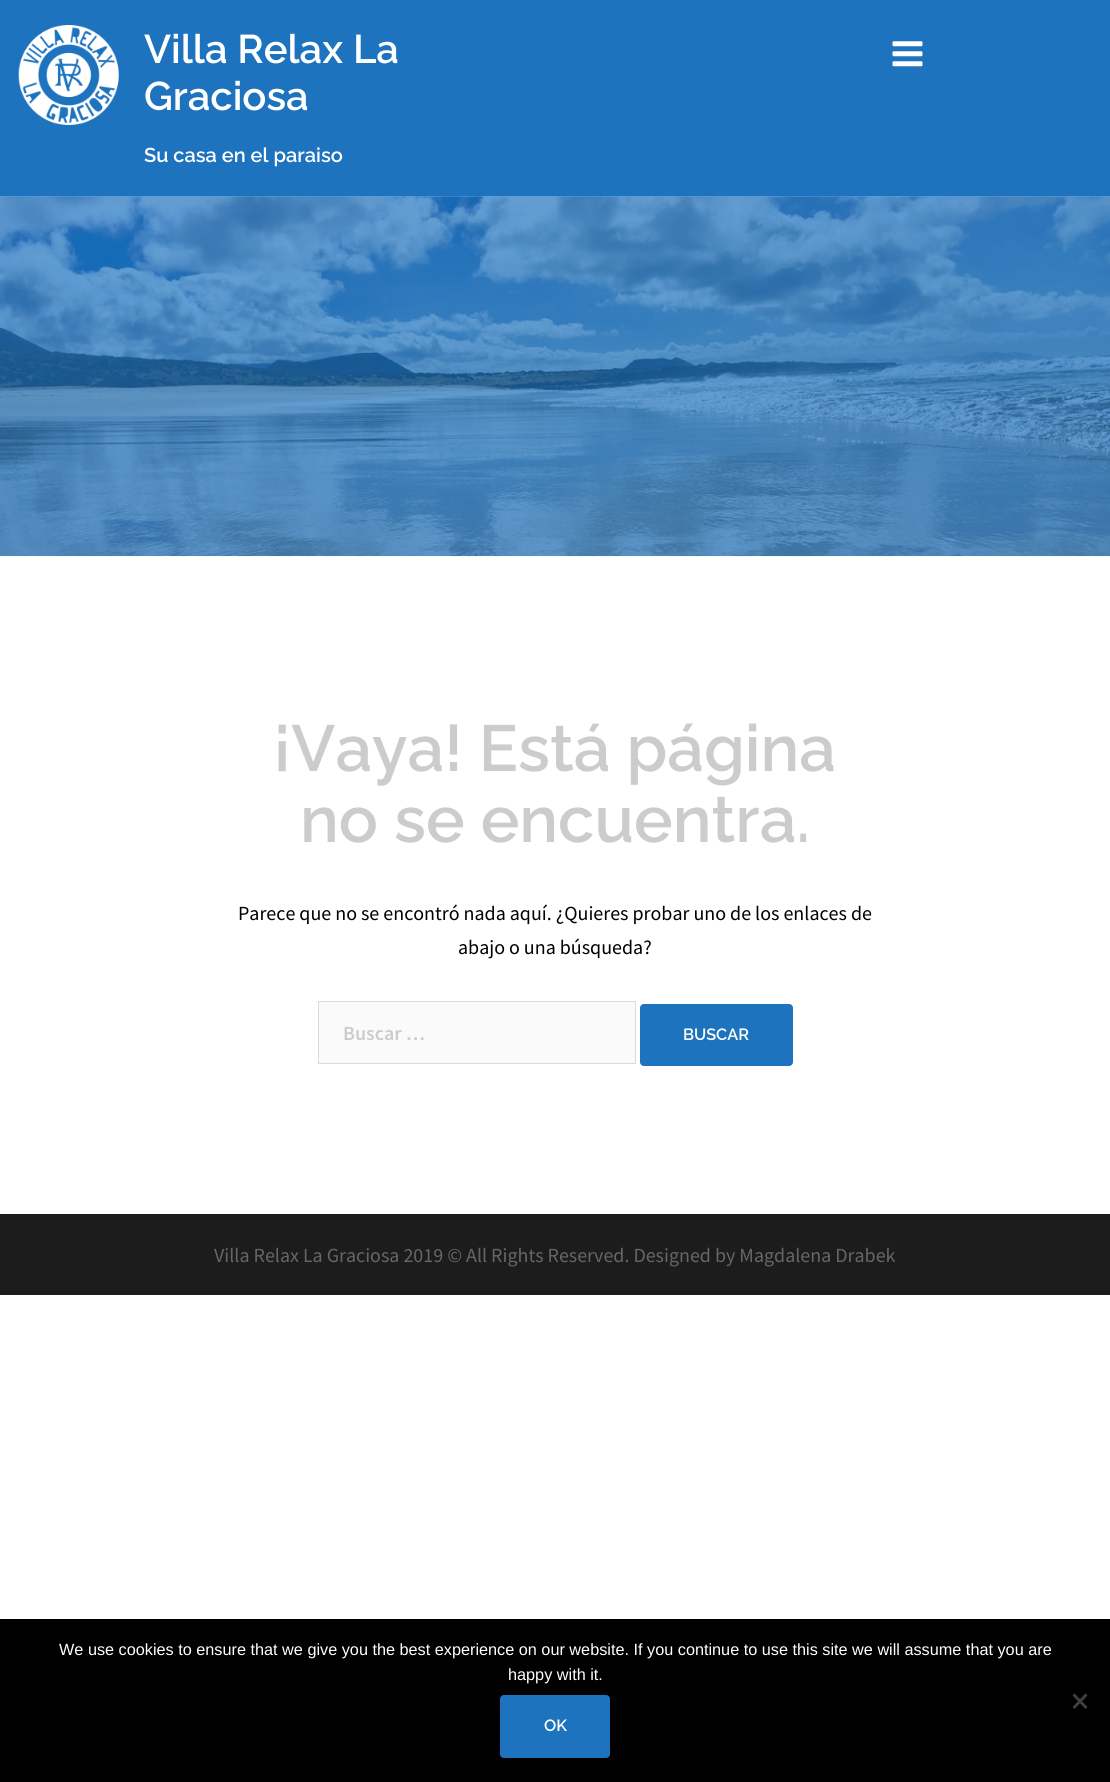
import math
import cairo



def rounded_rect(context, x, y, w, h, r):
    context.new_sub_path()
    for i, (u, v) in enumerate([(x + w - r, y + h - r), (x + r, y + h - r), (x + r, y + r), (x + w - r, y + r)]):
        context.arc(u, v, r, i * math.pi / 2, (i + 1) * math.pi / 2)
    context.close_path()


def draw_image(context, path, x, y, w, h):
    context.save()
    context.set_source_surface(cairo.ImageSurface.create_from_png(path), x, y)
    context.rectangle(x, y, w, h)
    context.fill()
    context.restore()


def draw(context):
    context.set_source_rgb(1, 1, 1)
    context.paint()
    context.set_source_rgb(98 / 255, 157 / 255, 210 / 255)
    context.rectangle(0, 196, 1110, 1)
    context.fill()
    context.set_source_rgb(30 / 255, 115 / 255, 190 / 255)
    context.rectangle(0, 0, 1110, 196)
    context.fill()
    draw_image(context, "images/1.png", 18, 25, 101, 100)
    draw_image(context, "images/2.png", 892, 41, 31, 26)
    draw_image(context, "images/3.png", 0, 196, 1110, 361)
    context.set_source_rgb(250 / 255, 250 / 255, 250 / 255)
    context.rectangle(318.5, 1001.5, 317, 62)
    context.fill_preserve()
    context.set_source_rgb(219 / 255, 219 / 255, 219 / 255)
    context.set_line_width(1)
    context.stroke()
    context.set_source_rgb(30 / 255, 115 / 255, 190 / 255)
    rounded_rect(context, 640.5, 1004.5, 152, 61, 3.5)
    context.fill_preserve()
    context.stroke()
    context.set_source_rgb(28 / 255, 28 / 255, 28 / 255)
    context.rectangle(0, 1214, 1110, 81)
    context.fill()
    context.set_source_rgb(0, 0, 0)
    context.rectangle(0, 1619, 1110, 163)
    context.fill()
    context.set_source_rgb(64 / 255, 64 / 255, 64 / 255)
    context.new_path()
    context.move_to(1085.5, 1693.5)
    context.line_to(1087.5, 1695.5)
    context.line_to(1074.5, 1709)
    context.line_to(1072.5, 1707)
    context.close_path()
    context.fill()
    context.new_path()
    context.move_to(1072.5, 1695.5)
    context.line_to(1074.5, 1693.5)
    context.line_to(1087.5, 1707)
    context.line_to(1085.5, 1709)
    context.close_path()
    context.fill()
    context.set_source_rgb(30 / 255, 115 / 255, 190 / 255)
    rounded_rect(context, 500.5, 1695.5, 109, 62, 3.5)
    context.fill_preserve()
    context.stroke()
    context.select_font_face("Raleway SemiBold")
    context.set_font_size(40)
    context.set_source_rgb(1, 1, 1)
    context.move_to(144, 63)
    context.show_text("Villa Relax La")
    context.move_to(144, 110)
    context.show_text("Graciosa")
    context.set_font_size(20)
    context.move_to(144, 162)
    context.show_text("Su casa en el paraiso")
    context.set_font_size(65)
    context.set_source_rgb(204 / 255, 204 / 255, 204 / 255)
    context.move_to(273, 771)
    context.show_text("¡Vaya! Está página")
    context.move_to(300, 842)
    context.show_text("no se encuentra.")
    context.select_font_face("Source Sans Pro")
    context.set_font_size(20)
    context.set_source_rgb(0, 0, 0)
    context.move_to(238, 920)
    context.show_text("Parece que no se encontró nada aquí. ¿Quieres probar uno de los enlaces de")
    context.move_to(458, 954)
    context.show_text("abajo o una búsqueda?")
    context.select_font_face("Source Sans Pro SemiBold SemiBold")
    context.set_source_rgb(204 / 255, 204 / 255, 204 / 255)
    context.move_to(343, 1040)
    context.show_text("Buscar …")
    context.select_font_face("Raleway SemiBold")
    context.set_font_size(16.25)
    context.set_source_rgb(1, 1, 1)
    context.move_to(683, 1040)
    context.show_text("BUSCAR")
    context.select_font_face("Source Sans Pro")
    context.set_font_size(20)
    context.set_source_rgb(102 / 255, 102 / 255, 102 / 255)
    context.move_to(214, 1262)
    context.show_text("Villa Relax La Graciosa 2019 © All Rights Reserved. Designed by Magdalena Drabek")
    context.select_font_face("Liberation Sans")
    context.set_font_size(16.25)
    context.set_source_rgb(1, 1, 1)
    context.move_to(59, 1655)
    context.show_text("We use cookies to ensure that we give you the best experience on our website. If you continue to use this site we will assume that you are")
    context.move_to(508, 1680)
    context.show_text("happy with it.")
    context.select_font_face("Raleway SemiBold")
    context.move_to(544, 1731)
    context.show_text("OK")


surface = cairo.ImageSurface(cairo.Format.RGB24, 1110, 1782)
context = cairo.Context(surface)
options = cairo.FontOptions()
options.set_hint_metrics(cairo.HintMetrics.OFF)
options.set_hint_style(cairo.HintStyle.NONE)
context.set_font_options(options)
context.set_miter_limit(4)
draw(context)
surface.write_to_png("out.png")
